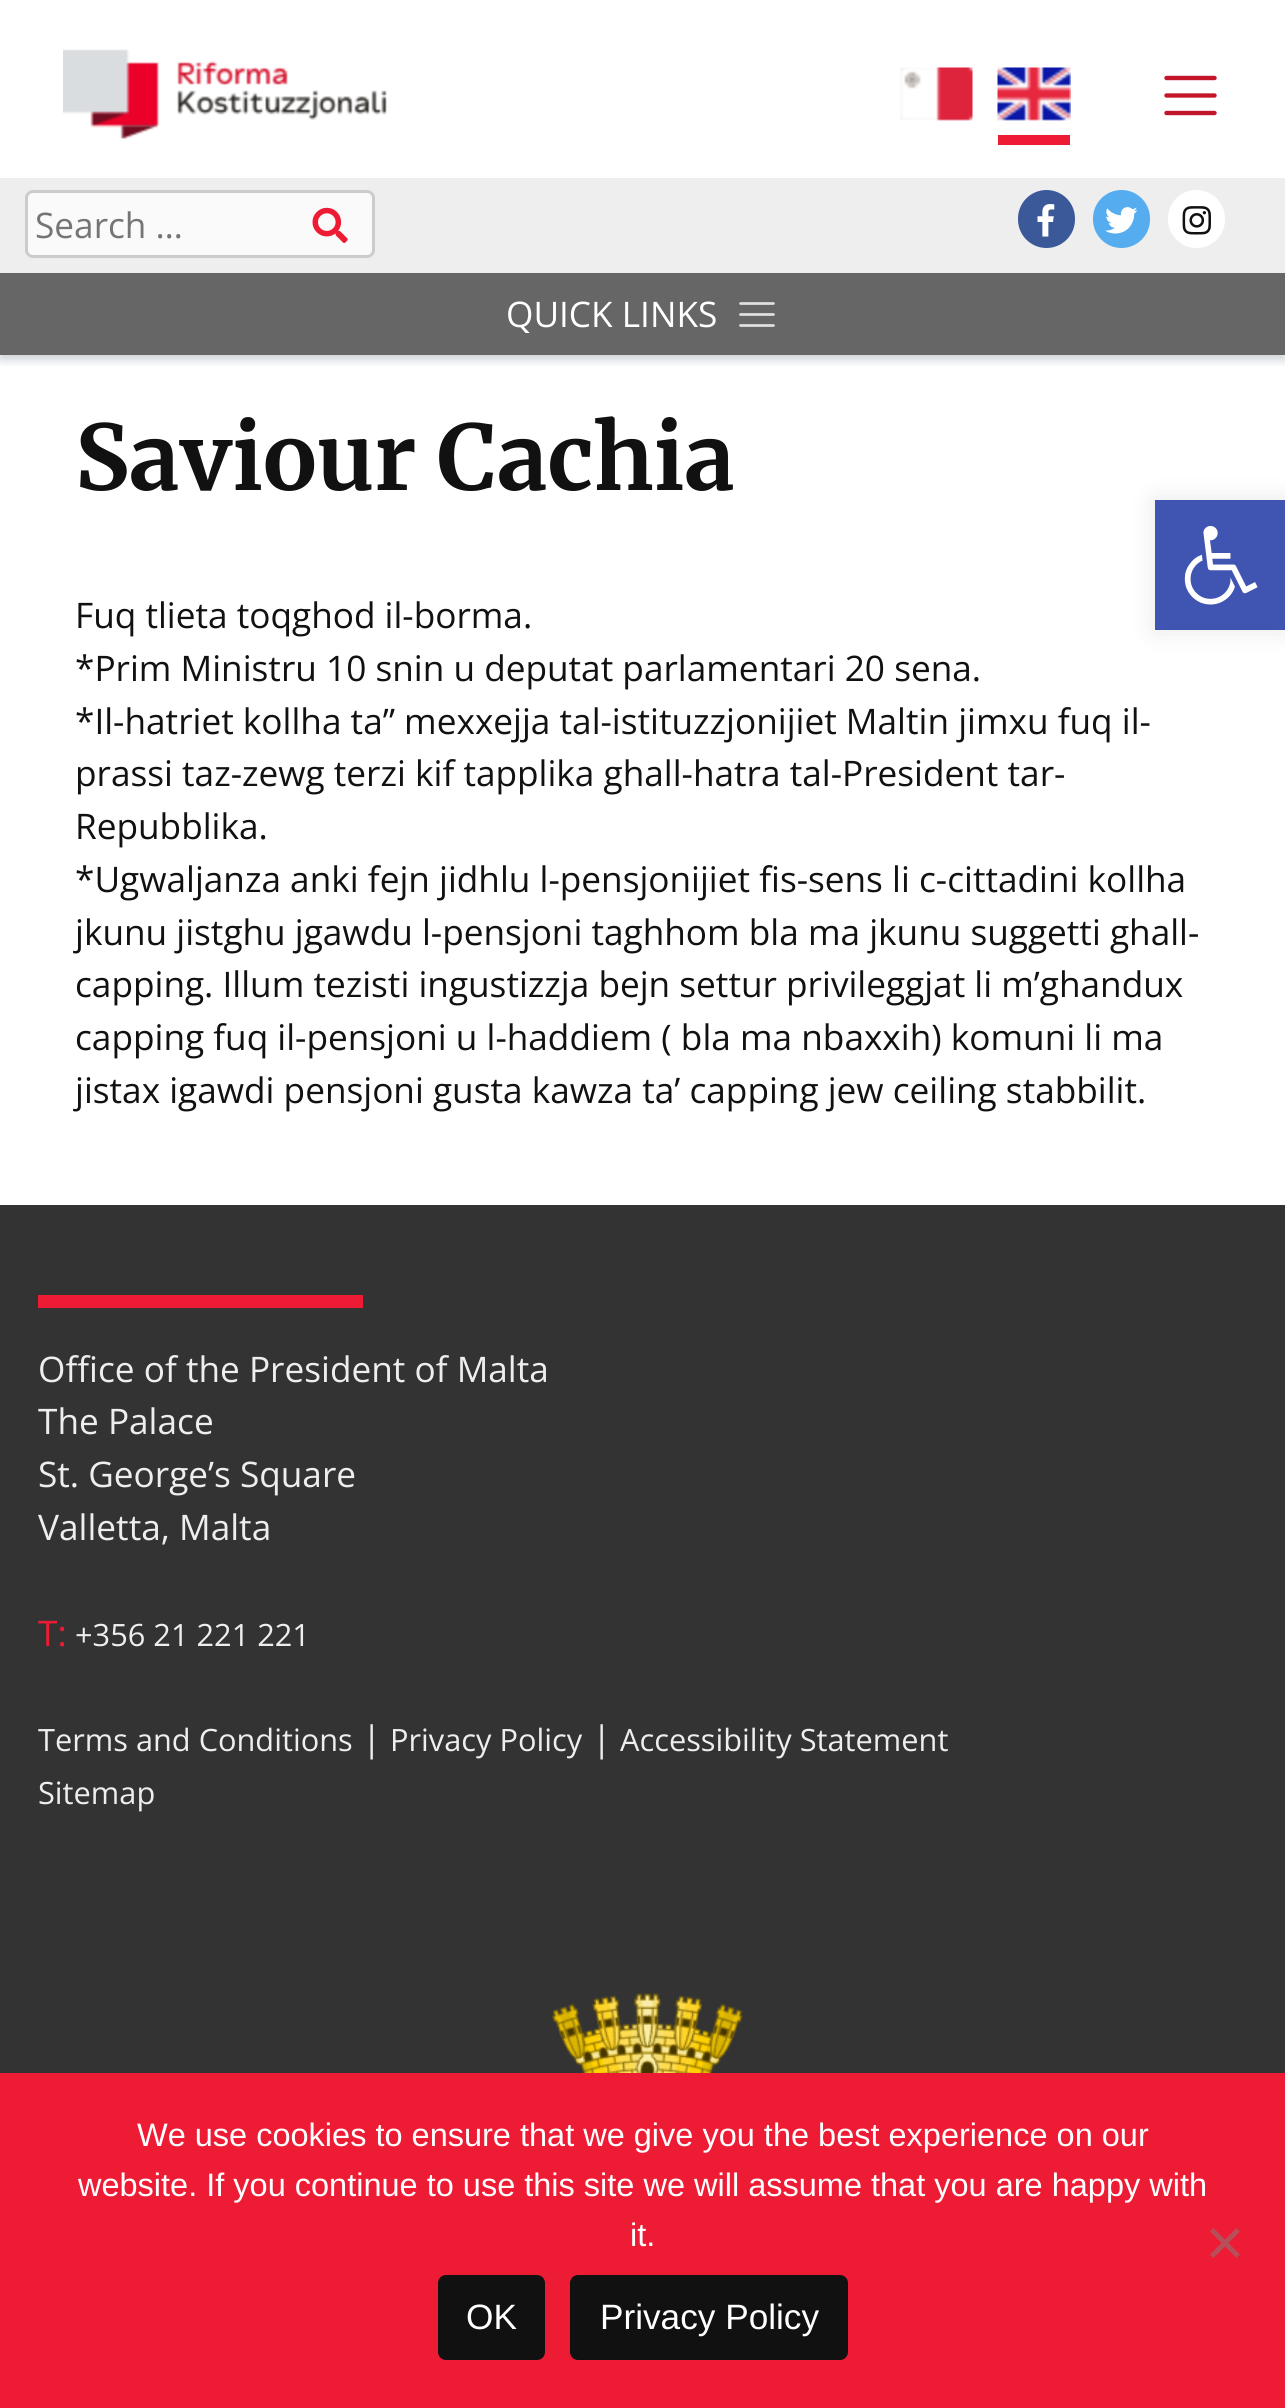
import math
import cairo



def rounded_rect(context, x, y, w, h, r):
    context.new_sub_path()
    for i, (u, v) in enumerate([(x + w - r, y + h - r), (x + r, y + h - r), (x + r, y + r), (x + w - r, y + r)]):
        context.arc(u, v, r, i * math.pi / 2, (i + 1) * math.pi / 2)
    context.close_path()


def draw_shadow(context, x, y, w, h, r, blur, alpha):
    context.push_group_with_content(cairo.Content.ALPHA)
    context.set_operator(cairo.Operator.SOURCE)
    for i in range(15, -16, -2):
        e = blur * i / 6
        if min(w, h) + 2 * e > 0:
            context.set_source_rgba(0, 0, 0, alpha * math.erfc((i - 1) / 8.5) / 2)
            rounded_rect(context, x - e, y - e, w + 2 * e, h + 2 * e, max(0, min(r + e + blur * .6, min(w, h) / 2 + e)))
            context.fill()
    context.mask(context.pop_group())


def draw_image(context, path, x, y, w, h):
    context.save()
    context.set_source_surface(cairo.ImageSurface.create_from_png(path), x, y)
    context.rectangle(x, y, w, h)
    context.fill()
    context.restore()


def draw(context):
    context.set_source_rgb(51 / 255, 51 / 255, 51 / 255)
    context.paint()
    context.set_source_rgb(1, 1, 1)
    context.rectangle(0, 0, 1285, 1205)
    context.fill()
    context.save()
    context.rectangle(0, 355, 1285, 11)
    context.clip()
    context.set_source_rgb(0, 31 / 255, 51 / 255)
    draw_shadow(context, 0, 5, 1285, 355, 0, 5, 0.2)
    context.restore()
    draw_image(context, "images/1.png", 63, 49, 324, 91)
    draw_image(context, "images/2.png", 900, 67, 73, 54)
    draw_image(context, "images/3.png", 997, 67, 74, 54)
    context.set_source_rgb(237 / 255, 27 / 255, 52 / 255)
    context.rectangle(998, 135, 72, 10)
    context.fill()
    context.new_path()
    context.move_to(1166.5, 78)
    context.line_to(1214.5, 78)
    context.move_to(1166.5, 95.5)
    context.line_to(1214.5, 95.5)
    context.move_to(1166.5, 113)
    context.line_to(1214.5, 113)
    context.set_source_rgb(196 / 255, 22 / 255, 43 / 255)
    context.set_line_width(4.4)
    context.set_line_cap(cairo.LineCap.ROUND)
    context.stroke()
    context.set_source_rgb(238 / 255, 238 / 255, 238 / 255)
    context.rectangle(0, 178, 1285, 95)
    context.fill()
    context.set_source_rgb(250 / 255, 250 / 255, 250 / 255)
    rounded_rect(context, 26.5, 191.5, 347, 65, 6.5)
    context.fill_preserve()
    context.set_source_rgb(204 / 255, 204 / 255, 204 / 255)
    context.set_line_width(3)
    context.set_line_cap(cairo.LineCap.BUTT)
    context.stroke()
    draw_image(context, "images/4.png", 312, 207, 36, 36)
    context.set_source_rgb(59 / 255, 89 / 255, 152 / 255)
    rounded_rect(context, 1018, 190, 57, 58, 28.5)
    context.fill()
    draw_image(context, "images/5.png", 1037, 204, 18, 33)
    context.set_source_rgb(85 / 255, 172 / 255, 238 / 255)
    rounded_rect(context, 1093, 190, 57, 58, 28.5)
    context.fill()
    draw_image(context, "images/6.png", 1105, 207, 33, 27)
    context.set_source_rgb(1, 1, 1)
    rounded_rect(context, 1168, 190, 57, 58, 28.5)
    context.fill()
    draw_image(context, "images/7.png", 1182, 206, 29, 29)
    context.set_source_rgb(102 / 255, 102 / 255, 102 / 255)
    context.rectangle(0, 273, 1285, 82)
    context.fill()
    context.new_path()
    context.move_to(740.5, 303.5)
    context.line_to(773.5, 303.5)
    context.move_to(740.5, 314.5)
    context.line_to(773.5, 314.5)
    context.move_to(740.5, 325.5)
    context.line_to(773.5, 325.5)
    context.set_source_rgb(224 / 255, 224 / 255, 224 / 255)
    context.set_line_width(2.7)
    context.set_line_cap(cairo.LineCap.ROUND)
    context.stroke()
    context.set_source_rgb(0, 0, 0)
    draw_shadow(context, 1155, 500, 130, 130, 0, 12.5, 0.1)
    context.set_source_rgb(64 / 255, 84 / 255, 178 / 255)
    context.rectangle(1155, 500, 130, 130)
    context.fill()
    draw_image(context, "images/8.png", 1184, 526, 74, 79)
    context.set_source_rgb(237 / 255, 27 / 255, 52 / 255)
    context.rectangle(38, 1295, 325, 13)
    context.fill()
    draw_image(context, "images/9.png", 551, 1993, 192, 80)
    context.rectangle(0, 2073, 1285, 335)
    context.fill()
    context.set_source_rgb(183 / 255, 78 / 255, 90 / 255)
    context.new_path()
    context.move_to(1236.5, 2228)
    context.line_to(1240, 2231.5)
    context.line_to(1213.5, 2258)
    context.line_to(1210, 2254.5)
    context.close_path()
    context.fill()
    context.new_path()
    context.move_to(1210, 2231.5)
    context.line_to(1213.5, 2228)
    context.line_to(1240, 2254.5)
    context.line_to(1236.5, 2258)
    context.close_path()
    context.fill()
    context.set_source_rgb(17 / 255, 17 / 255, 17 / 255)
    rounded_rect(context, 439.5, 2276.5, 104, 82, 6.5)
    context.fill_preserve()
    context.set_line_width(3)
    context.set_line_cap(cairo.LineCap.BUTT)
    context.stroke()
    rounded_rect(context, 571.5, 2276.5, 275, 82, 6.5)
    context.fill_preserve()
    context.stroke()
    context.select_font_face("Open Sans")
    context.set_font_size(35.2)
    context.set_source_rgb(117 / 255, 117 / 255, 117 / 255)
    context.move_to(35, 238)
    context.show_text("Search …")
    context.set_source_rgb(1, 1, 1)
    context.move_to(506, 327)
    context.show_text("QUICK LINKS")
    context.select_font_face("Merriweather", cairo.FontSlant.NORMAL, cairo.FontWeight.BOLD)
    context.set_font_size(90)
    context.set_source_rgb(17 / 255, 17 / 255, 17 / 255)
    context.move_to(75, 490)
    context.show_text("Saviour Cachia")
    context.select_font_face("Open Sans")
    context.set_font_size(35.2)
    context.move_to(75, 628)
    context.show_text("Fuq tlieta toqghod il-borma.")
    context.move_to(75, 681)
    context.show_text("*Prim Ministru 10 snin u deputat parlamentari 20 sena.")
    context.move_to(75, 734)
    context.show_text("*Il-hatriet kollha ta” mexxejja tal-istituzzjonijiet Maltin jimxu fuq il-")
    context.move_to(75, 786)
    context.show_text("prassi taz-zewg terzi kif tapplika ghall-hatra tal-President tar-")
    context.move_to(75, 839)
    context.show_text("Repubblika.")
    context.move_to(75, 892)
    context.show_text("*Ugwaljanza anki fejn jidhlu l-pensjonijiet fis-sens li c-cittadini kollha")
    context.move_to(75, 945)
    context.show_text("jkunu jistghu jgawdu l-pensjoni taghhom bla ma jkunu suggetti ghall-")
    context.move_to(75, 997)
    context.show_text("capping. Illum tezisti ingustizzja bejn settur privileggjat li m’ghandux")
    context.move_to(75, 1050)
    context.show_text("capping fuq il-pensjoni u l-haddiem ( bla ma nbaxxih) komuni li ma")
    context.move_to(75, 1103)
    context.show_text("jistax igawdi pensjoni gusta kawza ta’ capping jew ceiling stabbilit.")
    context.set_source_rgb(238 / 255, 238 / 255, 238 / 255)
    context.move_to(38, 1382)
    context.show_text("Office of the President of Malta")
    context.move_to(38, 1434)
    context.show_text("The Palace")
    context.move_to(38, 1487)
    context.show_text("St. George’s Square")
    context.move_to(38, 1540)
    context.show_text("Valletta, Malta")
    context.set_source_rgb(237 / 255, 27 / 255, 52 / 255)
    context.move_to(38, 1646)
    context.show_text("T:")
    context.set_font_size(30.75)
    context.set_source_rgb(238 / 255, 238 / 255, 238 / 255)
    context.move_to(75, 1646)
    context.show_text("+356 21 221 221")
    context.move_to(38, 1751)
    context.show_text("Terms and Conditions")
    context.set_font_size(35.2)
    context.move_to(362, 1751)
    context.show_text("|")
    context.set_font_size(30.75)
    context.move_to(390, 1751)
    context.show_text("Privacy Policy")
    context.set_font_size(35.2)
    context.move_to(592, 1751)
    context.show_text("|")
    context.set_font_size(30.75)
    context.move_to(620, 1751)
    context.show_text("Accessibility Statement")
    context.move_to(38, 1804)
    context.show_text("Sitemap")
    context.select_font_face("Liberation Sans")
    context.set_font_size(32.5)
    context.set_source_rgb(1, 1, 1)
    context.move_to(137, 2146)
    context.show_text("We use cookies to ensure that we give you the best experience on our")
    context.move_to(78, 2196)
    context.show_text("website. If you continue to use this site we will assume that you are happy with")
    context.move_to(630, 2246)
    context.show_text("it.")
    context.set_font_size(35.2)
    context.move_to(466, 2329)
    context.show_text("OK")
    context.move_to(600, 2329)
    context.show_text("Privacy Policy")


surface = cairo.ImageSurface(cairo.Format.RGB24, 1285, 2408)
context = cairo.Context(surface)
options = cairo.FontOptions()
options.set_hint_metrics(cairo.HintMetrics.OFF)
options.set_hint_style(cairo.HintStyle.NONE)
context.set_font_options(options)
context.set_miter_limit(4)
draw(context)
surface.write_to_png("out.png")
